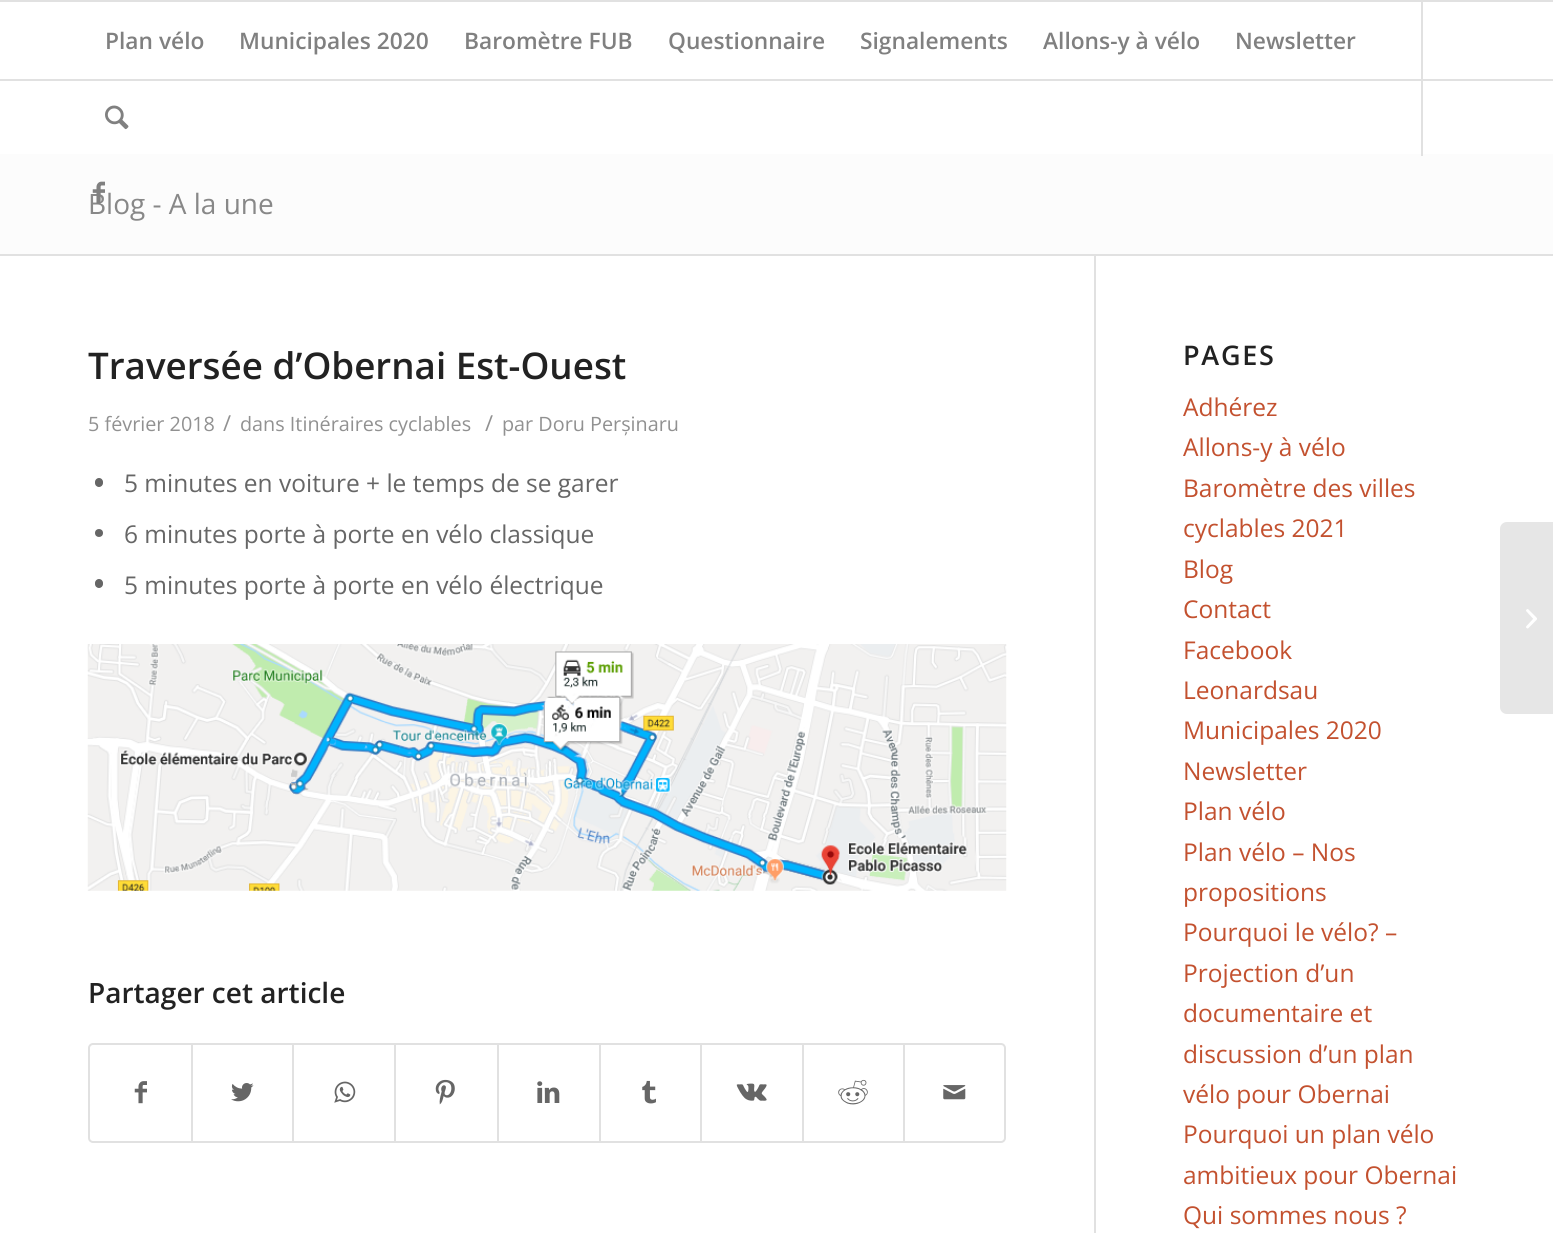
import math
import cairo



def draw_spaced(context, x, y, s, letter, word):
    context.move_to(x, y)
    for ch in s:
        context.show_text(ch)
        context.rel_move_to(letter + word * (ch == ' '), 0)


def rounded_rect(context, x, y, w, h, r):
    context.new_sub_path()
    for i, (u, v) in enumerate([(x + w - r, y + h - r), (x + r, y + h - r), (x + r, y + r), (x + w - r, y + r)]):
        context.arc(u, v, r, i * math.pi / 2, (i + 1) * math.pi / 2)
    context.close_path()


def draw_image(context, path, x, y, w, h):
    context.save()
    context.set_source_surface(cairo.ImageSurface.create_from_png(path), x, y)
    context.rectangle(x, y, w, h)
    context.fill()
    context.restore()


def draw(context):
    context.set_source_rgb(1, 1, 1)
    context.paint()
    context.set_source_rgb(225 / 255, 225 / 255, 225 / 255)
    context.rectangle(0, 0, 1553, 2)
    context.fill()
    context.rectangle(0, 79, 1553, 2)
    context.fill()
    context.set_source_rgb(252 / 255, 252 / 255, 252 / 255)
    context.rectangle(0, 154, 1553, 100)
    context.fill()
    context.set_source_rgb(225 / 255, 225 / 255, 225 / 255)
    context.rectangle(1421, 2, 2, 154)
    context.fill()
    draw_image(context, "images/1.png", 105, 105, 24, 25)
    context.rectangle(0, 254, 1553, 2)
    context.fill()
    context.rectangle(1094, 256, 2, 977)
    context.fill()
    context.set_source_rgb(102 / 255, 102 / 255, 102 / 255)
    rounded_rect(context, 95, 478, 8, 9, 4)
    context.fill()
    context.arc(99, 533, 4, 0, 2 * math.pi)
    context.fill()
    rounded_rect(context, 95, 579, 8, 9, 4)
    context.fill()
    draw_image(context, "images/3.png", 87, 644, 920, 247)
    rounded_rect(context, 89, 1044, 916, 98, 4)
    context.set_source_rgb(225 / 255, 225 / 255, 225 / 255)
    context.stroke()
    draw_image(context, "images/4.png", 134, 1081, 13, 23)
    context.rectangle(191, 1045, 2, 96)
    context.fill()
    draw_image(context, "images/5.png", 231, 1083, 23, 19)
    context.rectangle(292, 1045, 2, 96)
    context.fill()
    draw_image(context, "images/6.png", 334, 1081, 22, 22)
    context.rectangle(394, 1045, 2, 96)
    context.fill()
    draw_image(context, "images/7.png", 435, 1079, 20, 26)
    context.rectangle(497, 1045, 2, 96)
    context.fill()
    draw_image(context, "images/8.png", 537, 1081, 23, 22)
    context.rectangle(599, 1045, 2, 96)
    context.fill()
    draw_image(context, "images/9.png", 642, 1080, 14, 24)
    context.rectangle(700, 1045, 2, 96)
    context.fill()
    draw_image(context, "images/10.png", 736, 1083, 31, 18)
    context.rectangle(802, 1045, 2, 96)
    context.fill()
    draw_image(context, "images/11.png", 838, 1079, 30, 26)
    context.rectangle(903, 1045, 2, 96)
    context.fill()
    draw_image(context, "images/12.png", 943, 1085, 23, 15)
    context.set_source_rgb(230 / 255, 230 / 255, 230 / 255)
    context.new_path()
    context.move_to(1507, 522)
    context.line_to(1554, 522)
    context.line_to(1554, 714)
    context.line_to(1507, 714)
    context.curve_to(1503, 714, 1500, 711, 1500, 707)
    context.line_to(1500, 529)
    context.curve_to(1500, 525, 1503, 522, 1507, 522)
    context.close_path()
    context.fill()
    draw_image(context, "images/13.png", 1526, 609, 11, 20)
    context.select_font_face("Open Sans SemiBold")
    context.set_font_size(22.75)
    context.set_source_rgb(128 / 255, 128 / 255, 128 / 255)
    context.move_to(105, 49)
    context.show_text("Plan vélo")
    context.move_to(239, 49)
    context.show_text("Municipales 2020")
    context.move_to(464, 49)
    context.show_text("Baromètre FUB")
    context.move_to(668, 49)
    context.show_text("Questionnaire")
    context.move_to(860, 49)
    context.show_text("Signalements")
    context.move_to(1043, 49)
    context.show_text("Allons-y à vélo")
    context.move_to(1235, 49)
    context.show_text("Newsletter")
    context.select_font_face("Open Sans")
    context.set_font_size(28)
    context.set_source_rgb(136 / 255, 136 / 255, 136 / 255)
    context.move_to(88, 214)
    context.show_text("Blog - A la une")
    draw_image(context, "images/2.png", 92, 181, 13, 23)
    context.select_font_face("Open Sans SemiBold")
    context.set_font_size(36.75)
    context.set_source_rgb(34 / 255, 34 / 255, 34 / 255)
    context.move_to(88, 379)
    context.show_text("Traversée d’Obernai Est-Ouest")
    context.select_font_face("Open Sans")
    context.set_font_size(19.8)
    context.set_source_rgb(145 / 255, 145 / 255, 145 / 255)
    context.move_to(88, 431)
    context.show_text("5 février 2018")
    context.set_font_size(22)
    context.move_to(223, 431)
    context.show_text("/")
    context.set_font_size(19.8)
    context.move_to(240, 431)
    context.show_text("dans Itinéraires cyclables")
    context.set_font_size(22)
    context.move_to(485, 431)
    context.show_text("/")
    context.set_font_size(19.8)
    context.move_to(502, 431)
    context.show_text("par Doru Perșinaru")
    context.set_font_size(24.5)
    context.set_source_rgb(102 / 255, 102 / 255, 102 / 255)
    context.move_to(124, 492)
    context.show_text("5 minutes en voiture + le temps de se garer")
    context.move_to(124, 543)
    context.show_text("6 minutes porte à porte en vélo classique")
    context.move_to(124, 594)
    context.show_text("5 minutes porte à porte en vélo électrique")
    context.select_font_face("Open Sans SemiBold")
    context.set_font_size(28)
    context.set_source_rgb(34 / 255, 34 / 255, 34 / 255)
    context.move_to(88, 1003)
    context.show_text("Partager cet article")
    context.set_font_size(27)
    draw_spaced(context, 1183, 365, "PAGES", 1.75, 0)
    context.select_font_face("Open Sans")
    context.set_font_size(24.5)
    context.set_source_rgb(195 / 255, 81 / 255, 47 / 255)
    context.move_to(1183, 416)
    context.show_text("Adhérez")
    context.move_to(1183, 456)
    context.show_text("Allons-y à vélo")
    context.move_to(1183, 497)
    context.show_text("Baromètre des villes")
    context.move_to(1183, 537)
    context.show_text("cyclables 2021")
    context.move_to(1183, 578)
    context.show_text("Blog")
    context.move_to(1183, 618)
    context.show_text("Contact")
    context.move_to(1183, 659)
    context.show_text("Facebook")
    context.move_to(1183, 699)
    context.show_text("Leonardsau")
    context.move_to(1183, 739)
    context.show_text("Municipales 2020")
    context.move_to(1183, 780)
    context.show_text("Newsletter")
    context.move_to(1183, 820)
    context.show_text("Plan vélo")
    context.move_to(1183, 861)
    context.show_text("Plan vélo – Nos")
    context.move_to(1183, 901)
    context.show_text("propositions")
    context.move_to(1183, 941)
    context.show_text("Pourquoi le vélo? –")
    context.move_to(1183, 982)
    context.show_text("Projection d’un")
    context.move_to(1183, 1022)
    context.show_text("documentaire et")
    context.move_to(1183, 1063)
    context.show_text("discussion d’un plan")
    context.move_to(1183, 1103)
    context.show_text("vélo pour Obernai")
    context.move_to(1183, 1143)
    context.show_text("Pourquoi un plan vélo")
    context.move_to(1183, 1184)
    context.show_text("ambitieux pour Obernai")
    context.move_to(1183, 1224)
    context.show_text("Qui sommes nous ?")


surface = cairo.ImageSurface(cairo.Format.RGB24, 1553, 1233)
context = cairo.Context(surface)
options = cairo.FontOptions()
options.set_hint_metrics(cairo.HintMetrics.OFF)
options.set_hint_style(cairo.HintStyle.NONE)
context.set_font_options(options)
context.set_miter_limit(4)
draw(context)
surface.write_to_png("out.png")
